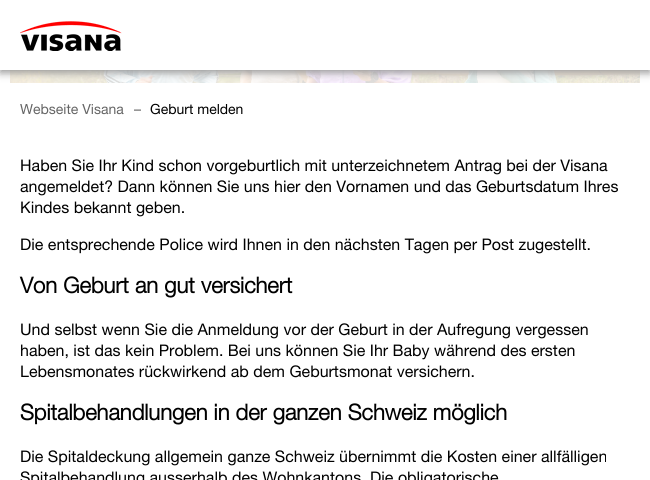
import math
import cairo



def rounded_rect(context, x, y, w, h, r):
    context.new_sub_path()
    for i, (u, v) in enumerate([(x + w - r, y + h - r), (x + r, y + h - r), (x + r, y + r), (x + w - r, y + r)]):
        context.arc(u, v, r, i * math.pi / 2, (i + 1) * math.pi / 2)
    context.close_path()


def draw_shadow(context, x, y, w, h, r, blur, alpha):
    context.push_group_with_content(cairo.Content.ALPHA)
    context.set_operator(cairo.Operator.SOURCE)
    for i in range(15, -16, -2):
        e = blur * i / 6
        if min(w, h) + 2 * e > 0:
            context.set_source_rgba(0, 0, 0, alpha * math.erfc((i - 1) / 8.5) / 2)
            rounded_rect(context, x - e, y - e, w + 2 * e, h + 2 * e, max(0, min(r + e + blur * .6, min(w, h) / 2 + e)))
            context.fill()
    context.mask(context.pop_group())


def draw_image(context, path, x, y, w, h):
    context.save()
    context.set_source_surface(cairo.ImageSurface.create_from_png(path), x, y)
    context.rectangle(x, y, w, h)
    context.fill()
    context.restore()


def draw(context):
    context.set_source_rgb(1, 1, 1)
    context.paint()
    draw_image(context, "images/2.png", 10, 70, 630, 13)
    context.set_source_rgba(1, 1, 1, 0.85)
    context.rectangle(10, 70, 630, 13)
    context.fill()
    context.set_source_rgb(153 / 255, 153 / 255, 153 / 255)
    draw_shadow(context, 0, 3, 650, 70, 0, 4, 1)
    context.set_source_rgb(1, 1, 1)
    context.rectangle(0, 0, 650, 70)
    context.fill()
    draw_image(context, "images/1.png", 20, 21, 102, 30)
    context.select_font_face("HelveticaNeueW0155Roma")
    context.set_font_size(14)
    context.set_source_rgb(101 / 255, 101 / 255, 101 / 255)
    context.move_to(20, 114)
    context.show_text("Webseite Visana")
    context.move_to(134, 114)
    context.show_text("–")
    context.set_source_rgb(0, 0, 0)
    context.move_to(150, 114)
    context.show_text("Geburt melden")
    context.set_font_size(16)
    context.move_to(20, 171)
    context.show_text("Haben Sie Ihr Kind schon vorgeburtlich mit unterzeichnetem Antrag bei der Visana")
    context.move_to(20, 192)
    context.show_text("angemeldet? Dann können Sie uns hier den Vornamen und das Geburtsdatum Ihres")
    context.move_to(20, 213)
    context.show_text("Kindes bekannt geben.")
    context.move_to(20, 250)
    context.show_text("Die entsprechende Police wird Ihnen in den nächsten Tagen per Post zugestellt.")
    context.select_font_face("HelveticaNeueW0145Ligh", cairo.FontSlant.NORMAL, cairo.FontWeight.BOLD)
    context.set_font_size(22)
    context.move_to(20, 293)
    context.show_text("Von Geburt an gut versichert")
    context.select_font_face("HelveticaNeueW0155Roma")
    context.set_font_size(16)
    context.move_to(20, 335)
    context.show_text("Und selbst wenn Sie die Anmeldung vor der Geburt in der Aufregung vergessen")
    context.move_to(20, 356)
    context.show_text("haben, ist das kein Problem. Bei uns können Sie Ihr Baby während des ersten")
    context.move_to(20, 377)
    context.show_text("Lebensmonates rückwirkend ab dem Geburtsmonat versichern.")
    context.select_font_face("HelveticaNeueW0145Ligh", cairo.FontSlant.NORMAL, cairo.FontWeight.BOLD)
    context.set_font_size(22)
    context.move_to(20, 420)
    context.show_text("Spitalbehandlungen in der ganzen Schweiz möglich")
    context.select_font_face("HelveticaNeueW0155Roma")
    context.set_font_size(16)
    context.move_to(20, 462)
    context.show_text("Die Spitaldeckung allgemein ganze Schweiz übernimmt die Kosten einer allfälligen")
    context.move_to(20, 483)
    context.show_text("Spitalbehandlung ausserhalb des Wohnkantons. Die obligatorische")


surface = cairo.ImageSurface(cairo.Format.RGB24, 650, 480)
context = cairo.Context(surface)
options = cairo.FontOptions()
options.set_hint_metrics(cairo.HintMetrics.OFF)
options.set_hint_style(cairo.HintStyle.NONE)
context.set_font_options(options)
context.set_miter_limit(4)
draw(context)
surface.write_to_png("out.png")
